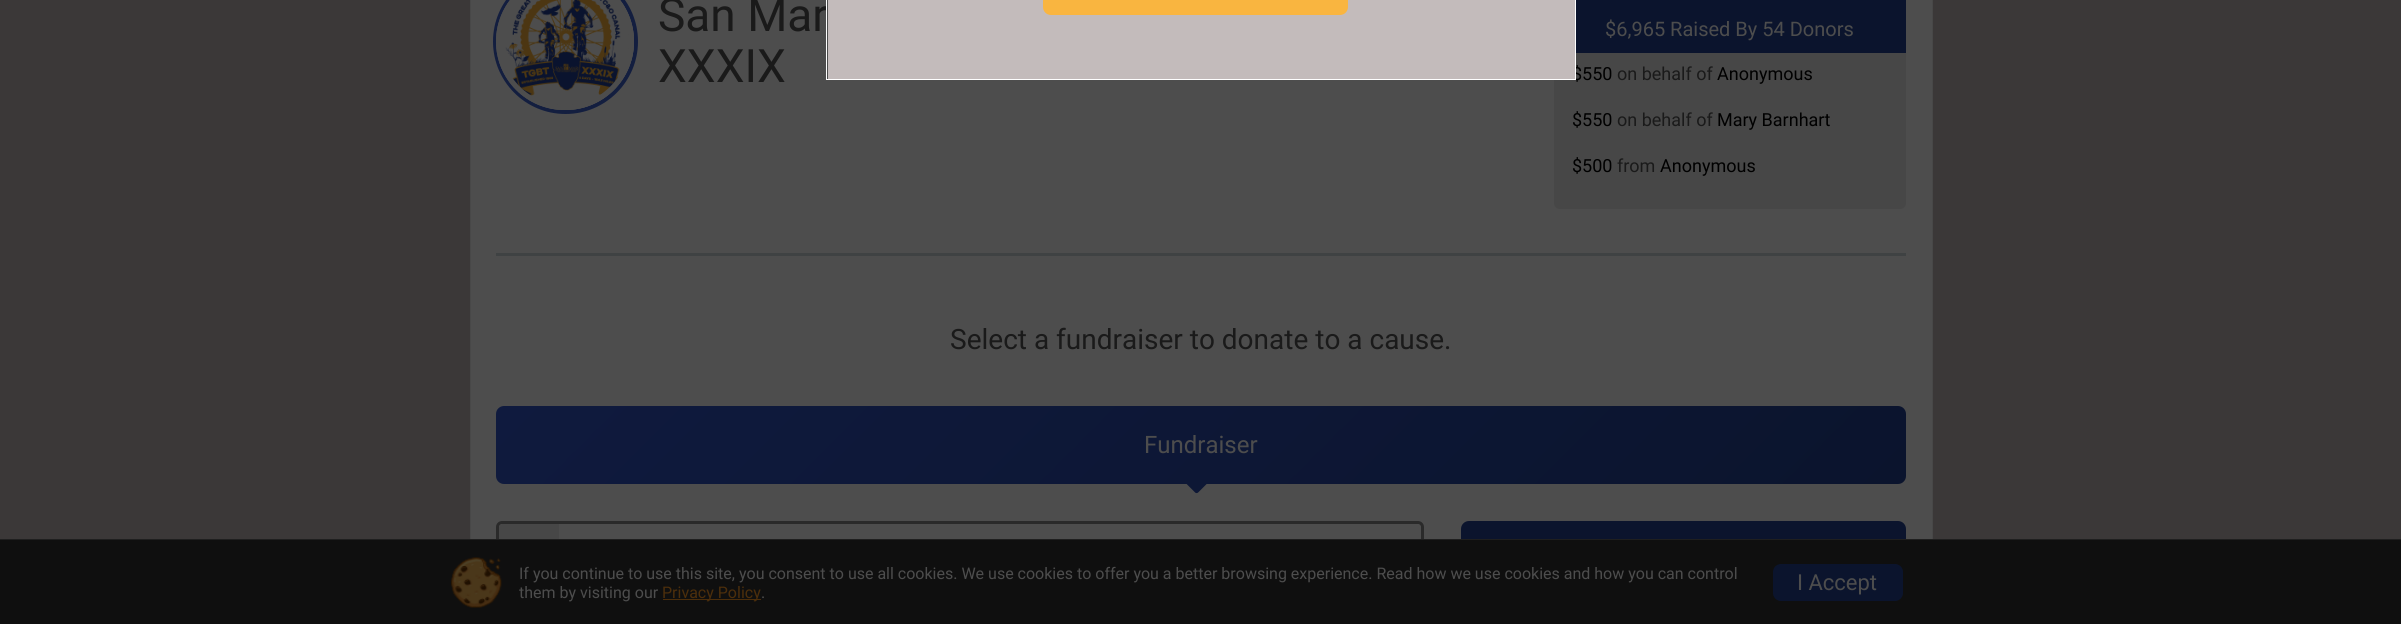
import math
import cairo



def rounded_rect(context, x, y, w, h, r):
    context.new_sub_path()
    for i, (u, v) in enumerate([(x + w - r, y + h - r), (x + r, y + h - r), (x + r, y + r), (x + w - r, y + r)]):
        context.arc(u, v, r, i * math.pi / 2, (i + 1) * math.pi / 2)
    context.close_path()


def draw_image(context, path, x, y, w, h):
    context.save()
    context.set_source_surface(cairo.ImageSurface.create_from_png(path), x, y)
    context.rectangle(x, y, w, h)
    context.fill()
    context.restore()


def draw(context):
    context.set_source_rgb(59 / 255, 56 / 255, 56 / 255)
    context.paint()
    context.set_source_rgb(77 / 255, 77 / 255, 77 / 255)
    context.rectangle(471, 0, 1461, 539)
    context.fill()
    context.rectangle(470.5, -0.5, 1462, 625)
    context.set_source_rgb(72 / 255, 72 / 255, 72 / 255)
    context.set_line_width(1)
    context.stroke()
    context.arc(565.5, 41.5, 70.5, 0, 2 * math.pi)
    context.set_source_rgb(19 / 255, 30 / 255, 63 / 255)
    context.set_line_width(4)
    context.stroke()
    context.set_source_rgb(77 / 255, 77 / 255, 77 / 255)
    rounded_rect(context, 496, -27, 138, 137, 68.5)
    context.fill()
    draw_image(context, "images/1.png", 505, 0, 118, 97)
    rounded_rect(context, 498.5, -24.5, 133, 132, 66)
    context.set_line_width(5)
    context.stroke()
    context.set_source_rgb(11 / 255, 20 / 255, 45 / 255)
    context.rectangle(1576, 0, 330, 53)
    context.fill()
    context.set_source_rgb(71 / 255, 71 / 255, 71 / 255)
    context.new_path()
    context.move_to(1554, 53)
    context.line_to(1906, 53)
    context.line_to(1906, 203)
    context.curve_to(1906, 206.5, 1903.5, 209, 1900, 209)
    context.line_to(1560, 209)
    context.curve_to(1556.5, 209, 1554, 206.5, 1554, 203)
    context.close_path()
    context.fill()
    context.set_source_rgb(63 / 255, 66 / 255, 67 / 255)
    context.rectangle(496, 253, 1410, 3)
    context.fill()
    gradient = cairo.LinearGradient(1573, 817, 829, 73)
    gradient.add_color_stop_rgba(0, 11 / 255, 20 / 255, 45 / 255, 1)
    gradient.add_color_stop_rgba(1, 15 / 255, 26 / 255, 62 / 255, 1)
    context.set_source(gradient)
    rounded_rect(context, 496, 406, 1410, 78, 8)
    context.fill()
    draw_image(context, "images/2.png", 1186, 484, 21, 10)
    rounded_rect(context, 497.5, 522.5, 925, 69, 4.5)
    context.set_source_rgb(42 / 255, 42 / 255, 42 / 255)
    context.set_line_width(3)
    context.stroke()
    context.set_source_rgb(71 / 255, 71 / 255, 71 / 255)
    context.new_path()
    context.move_to(503, 524)
    context.line_to(559, 524)
    context.line_to(559, 590)
    context.line_to(503, 590)
    context.curve_to(501, 590, 499, 588, 499, 586)
    context.line_to(499, 528)
    context.curve_to(499, 526, 501, 524, 503, 524)
    context.close_path()
    context.fill()
    context.set_source_rgb(77 / 255, 77 / 255, 77 / 255)
    context.new_path()
    context.move_to(559, 524)
    context.line_to(1417, 524)
    context.curve_to(1419, 524, 1421, 526, 1421, 528)
    context.line_to(1421, 586)
    context.curve_to(1421, 588, 1419, 590, 1417, 590)
    context.line_to(559, 590)
    context.close_path()
    context.fill()
    context.set_source_rgb(11 / 255, 20 / 255, 45 / 255)
    rounded_rect(context, 1461, 521, 445, 65, 8)
    context.fill()
    context.set_source_rgb(15 / 255, 15 / 255, 15 / 255)
    context.rectangle(0, 540, 2401, 84)
    context.fill()
    context.set_source_rgb(31 / 255, 31 / 255, 31 / 255)
    context.rectangle(0, 539, 2401, 1)
    context.fill()
    draw_image(context, "images/3.png", 451, 557, 51, 51)
    context.set_source_rgb(76 / 255, 46 / 255, 11 / 255)
    context.rectangle(663, 599, 98, 1)
    context.fill()
    context.set_source_rgb(11 / 255, 20 / 255, 45 / 255)
    rounded_rect(context, 1773, 564, 130, 37, 8)
    context.fill()
    context.select_font_face("Roboto")
    context.set_font_size(46)
    context.set_source_rgb(26 / 255, 26 / 255, 26 / 255)
    context.move_to(658, 31)
    context.show_text("San Mar")
    context.move_to(658, 82)
    context.show_text("XXXIX")
    context.set_font_size(20)
    context.set_source_rgb(77 / 255, 77 / 255, 77 / 255)
    context.move_to(1605, 36)
    context.show_text("$6,965 Raised By 54 Donors")
    context.set_font_size(18)
    context.set_source_rgb(0, 0, 0)
    context.move_to(1572, 80)
    context.show_text("$550")
    context.rectangle(826.5, -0.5, 749, 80)
    context.set_source_rgb(1, 1, 1)
    context.set_line_width(1)
    context.stroke()
    context.set_source_rgb(195 / 255, 187 / 255, 187 / 255)
    context.rectangle(828, 0, 747, 79)
    context.fill()
    context.set_source_rgb(249 / 255, 181 / 255, 64 / 255)
    rounded_rect(context, 1043, -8, 305, 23, 8)
    context.fill()
    context.set_source_rgb(26 / 255, 26 / 255, 26 / 255)
    context.move_to(1617, 80)
    context.show_text("on behalf of")
    context.set_source_rgb(0, 0, 0)
    context.move_to(1717, 80)
    context.show_text("Anonymous")
    context.move_to(1572, 126)
    context.show_text("$550")
    context.set_source_rgb(26 / 255, 26 / 255, 26 / 255)
    context.move_to(1617, 126)
    context.show_text("on behalf of")
    context.set_source_rgb(0, 0, 0)
    context.move_to(1717, 126)
    context.show_text("Mary Barnhart")
    context.move_to(1572, 172)
    context.show_text("$500")
    context.set_source_rgb(26 / 255, 26 / 255, 26 / 255)
    context.move_to(1617, 172)
    context.show_text("from")
    context.set_source_rgb(0, 0, 0)
    context.move_to(1660, 172)
    context.show_text("Anonymous")
    context.set_font_size(28)
    context.set_source_rgb(26 / 255, 26 / 255, 26 / 255)
    context.move_to(950, 349)
    context.show_text("Select a fundraiser to donate to a cause.")
    context.set_font_size(24)
    context.set_source_rgb(77 / 255, 77 / 255, 77 / 255)
    context.move_to(1144, 453)
    context.show_text("Fundraiser")
    context.set_font_size(16)
    context.move_to(519, 579)
    context.show_text("If you continue to use this site, you consent to use all cookies. We use cookies to offer you a better browsing experience. Read how we use cookies and how you can control")
    context.move_to(519, 598)
    context.show_text("them by visiting our")
    context.set_source_rgb(76 / 255, 46 / 255, 11 / 255)
    context.move_to(662, 598)
    context.show_text("Privacy Policy")
    context.set_source_rgb(77 / 255, 77 / 255, 77 / 255)
    context.move_to(761, 598)
    context.show_text(".")
    context.set_font_size(22)
    context.move_to(1797, 590)
    context.show_text("I Accept")


surface = cairo.ImageSurface(cairo.Format.RGB24, 2401, 624)
context = cairo.Context(surface)
options = cairo.FontOptions()
options.set_hint_metrics(cairo.HintMetrics.OFF)
options.set_hint_style(cairo.HintStyle.NONE)
context.set_font_options(options)
context.set_miter_limit(4)
draw(context)
surface.write_to_png("out.png")
